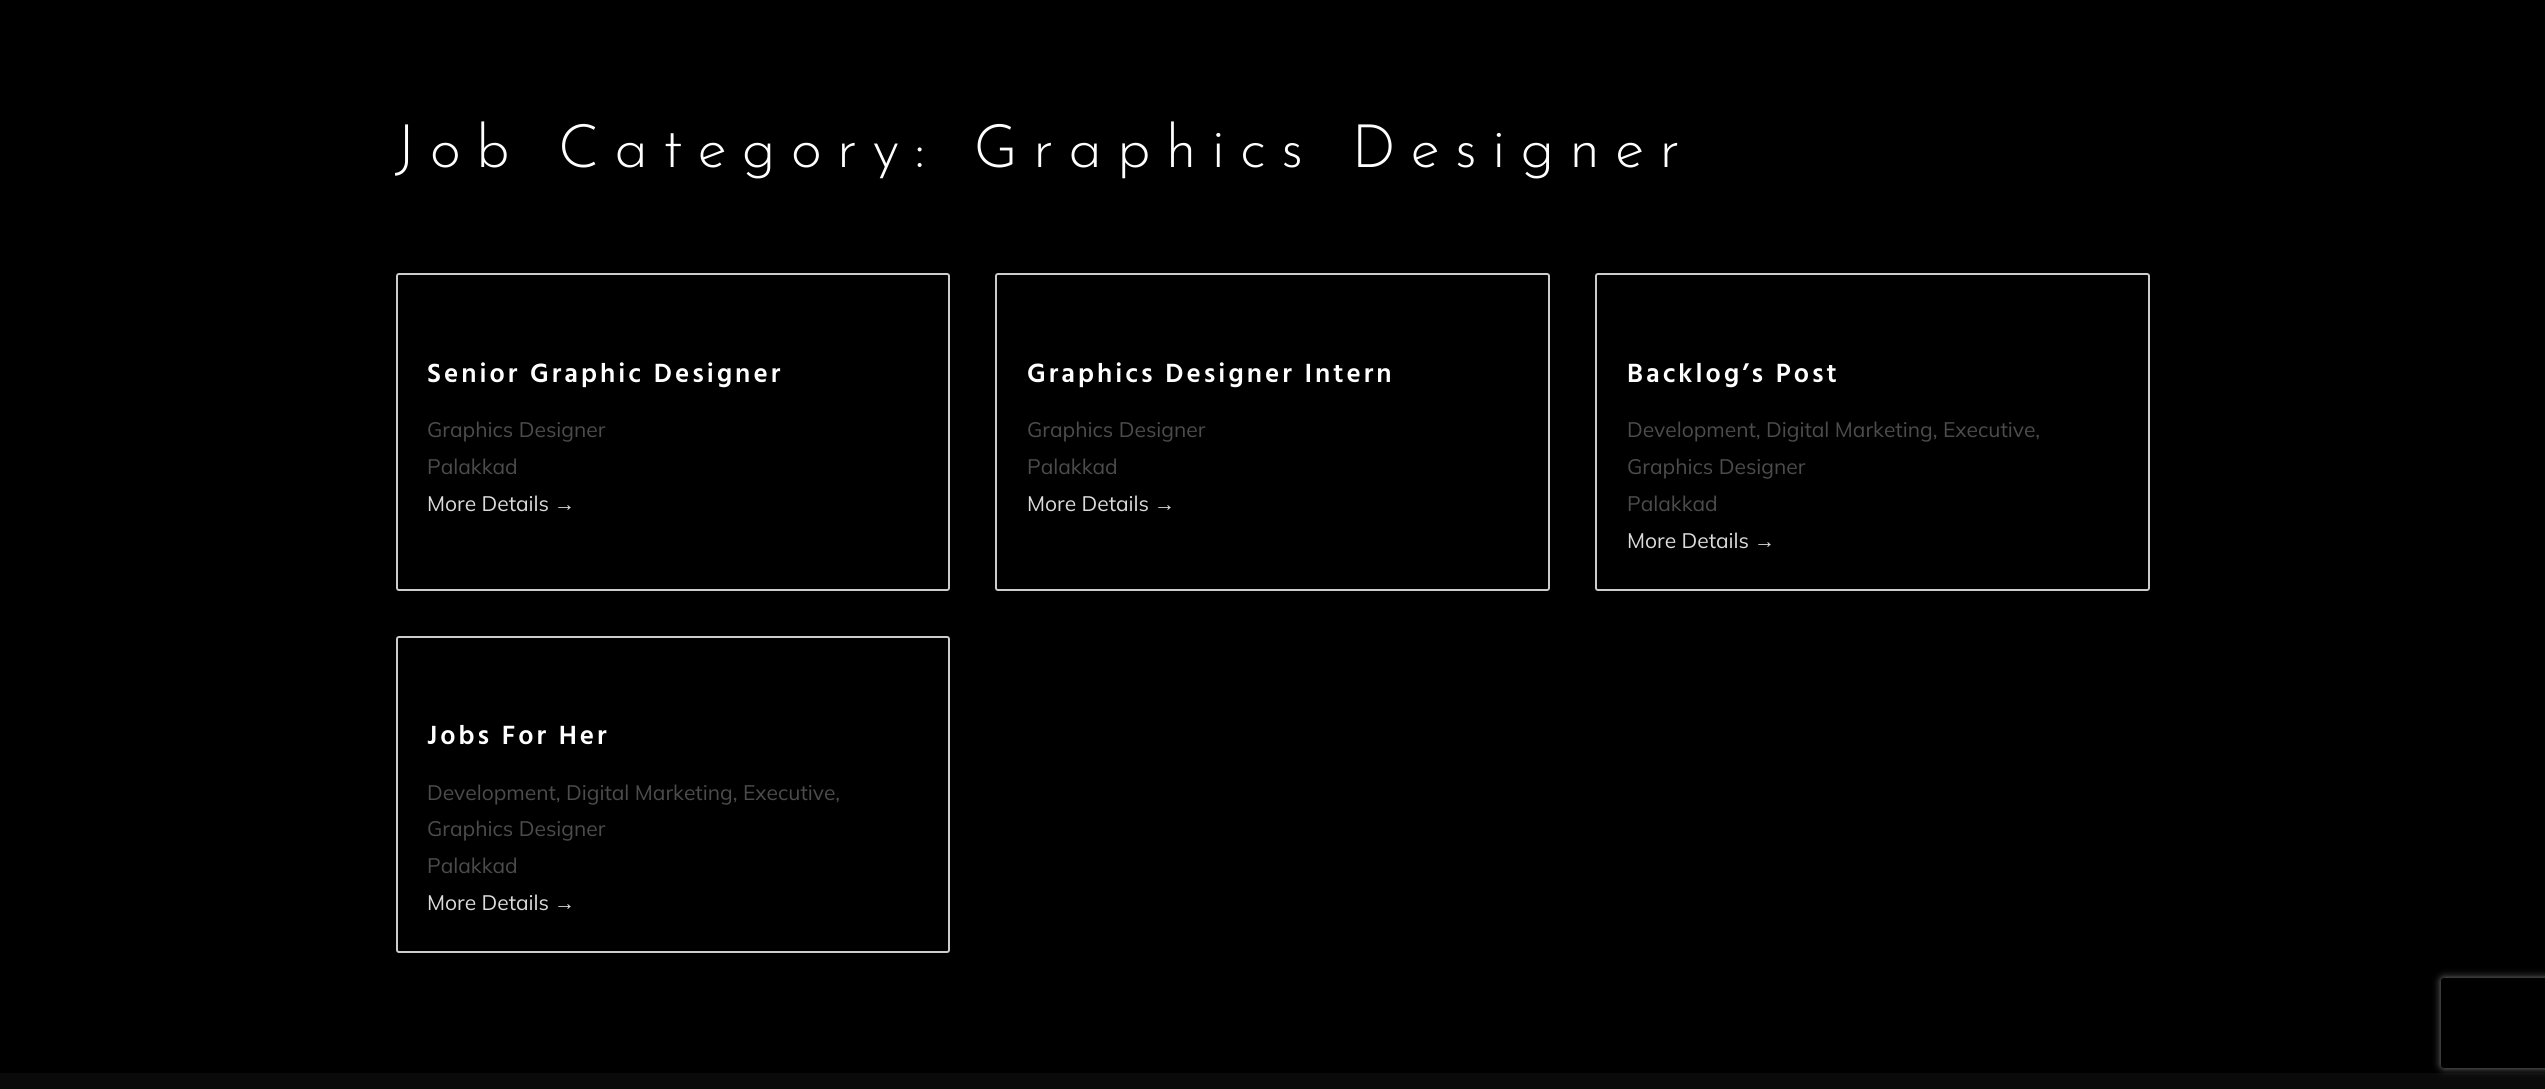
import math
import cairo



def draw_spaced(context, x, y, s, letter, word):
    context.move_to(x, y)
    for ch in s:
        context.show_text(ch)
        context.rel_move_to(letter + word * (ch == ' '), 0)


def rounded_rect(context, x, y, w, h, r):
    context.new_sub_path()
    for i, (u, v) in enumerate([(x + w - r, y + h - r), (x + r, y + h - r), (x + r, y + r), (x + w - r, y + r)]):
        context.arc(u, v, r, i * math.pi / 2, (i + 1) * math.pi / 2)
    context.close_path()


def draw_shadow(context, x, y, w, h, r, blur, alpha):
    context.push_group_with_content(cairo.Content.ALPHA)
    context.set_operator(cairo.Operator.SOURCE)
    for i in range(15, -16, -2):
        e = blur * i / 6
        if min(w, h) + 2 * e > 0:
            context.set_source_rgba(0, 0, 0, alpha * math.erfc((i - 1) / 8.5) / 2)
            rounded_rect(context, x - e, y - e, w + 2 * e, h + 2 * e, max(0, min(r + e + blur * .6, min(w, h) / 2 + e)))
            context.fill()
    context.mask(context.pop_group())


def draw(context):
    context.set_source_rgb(0, 0, 0)
    context.paint()
    rounded_rect(context, 397, 274, 552, 316, 2)
    context.set_source_rgb(204 / 255, 204 / 255, 204 / 255)
    context.stroke()
    rounded_rect(context, 996, 274, 553, 316, 2)
    context.stroke()
    rounded_rect(context, 1596, 274, 553, 316, 2)
    context.stroke()
    rounded_rect(context, 397, 637, 552, 315, 2)
    context.stroke()
    context.set_source_rgb(10 / 255, 10 / 255, 10 / 255)
    context.rectangle(0, 1073, 2545, 16)
    context.fill()
    context.save()
    context.set_fill_rule(cairo.FillRule.EVEN_ODD)
    context.new_path()
    context.move_to(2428, 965)
    context.line_to(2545, 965)
    context.line_to(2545, 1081)
    context.line_to(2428, 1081)
    context.close_path()
    context.move_to(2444, 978)
    context.line_to(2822, 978)
    context.curve_to(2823.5, 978, 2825, 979.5, 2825, 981)
    context.line_to(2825, 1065)
    context.curve_to(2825, 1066.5, 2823.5, 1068, 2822, 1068)
    context.line_to(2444, 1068)
    context.curve_to(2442.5, 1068, 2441, 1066.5, 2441, 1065)
    context.line_to(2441, 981)
    context.curve_to(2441, 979.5, 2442.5, 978, 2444, 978)
    context.close_path()
    context.clip()
    context.set_source_rgb(128 / 255, 128 / 255, 128 / 255)
    draw_shadow(context, 2441, 978, 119, 90, 3, 4, 1)
    context.restore()
    context.select_font_face("Josefin Sans Thin")
    context.set_font_size(60)
    context.set_source_rgb(1, 1, 1)
    draw_spaced(context, 395, 167, "Job Category: Graphics Designer", 15, 0)
    context.select_font_face("Hind SemiBold")
    context.set_font_size(27)
    draw_spaced(context, 427, 382, "Senior Graphic Designer", 3, 0)
    context.select_font_face("Mulish")
    context.set_font_size(21)
    context.set_source_rgb(76 / 255, 76 / 255, 76 / 255)
    context.move_to(427, 437)
    context.show_text("Graphics Designer")
    context.move_to(427, 474)
    context.show_text("Palakkad")
    context.set_source_rgb(219 / 255, 219 / 255, 219 / 255)
    context.move_to(427, 511)
    context.show_text("More Details")
    context.select_font_face("Liberation Sans")
    context.move_to(554, 511)
    context.show_text("→")
    context.select_font_face("Hind SemiBold")
    context.set_font_size(27)
    context.set_source_rgb(1, 1, 1)
    draw_spaced(context, 1027, 382, "Graphics Designer Intern", 3, 0)
    context.select_font_face("Mulish")
    context.set_font_size(21)
    context.set_source_rgb(76 / 255, 76 / 255, 76 / 255)
    context.move_to(1027, 437)
    context.show_text("Graphics Designer")
    context.move_to(1027, 474)
    context.show_text("Palakkad")
    context.set_source_rgb(219 / 255, 219 / 255, 219 / 255)
    context.move_to(1027, 511)
    context.show_text("More Details")
    context.select_font_face("Liberation Sans")
    context.move_to(1154, 511)
    context.show_text("→")
    context.select_font_face("Hind SemiBold")
    context.set_font_size(27)
    context.set_source_rgb(1, 1, 1)
    draw_spaced(context, 1627, 382, "Backlog’s Post", 3, 0)
    context.select_font_face("Mulish")
    context.set_font_size(21)
    context.set_source_rgb(76 / 255, 76 / 255, 76 / 255)
    context.move_to(1627, 437)
    context.show_text("Development, Digital Marketing, Executive,")
    context.move_to(1627, 474)
    context.show_text("Graphics Designer")
    context.move_to(1627, 511)
    context.show_text("Palakkad")
    context.set_source_rgb(219 / 255, 219 / 255, 219 / 255)
    context.move_to(1627, 548)
    context.show_text("More Details")
    context.select_font_face("Liberation Sans")
    context.move_to(1754, 548)
    context.show_text("→")
    context.select_font_face("Hind SemiBold")
    context.set_font_size(27)
    context.set_source_rgb(1, 1, 1)
    draw_spaced(context, 427, 744, "Jobs For Her", 3, 0)
    context.select_font_face("Mulish")
    context.set_font_size(21)
    context.set_source_rgb(76 / 255, 76 / 255, 76 / 255)
    context.move_to(427, 800)
    context.show_text("Development, Digital Marketing, Executive,")
    context.move_to(427, 836)
    context.show_text("Graphics Designer")
    context.move_to(427, 873)
    context.show_text("Palakkad")
    context.set_source_rgb(219 / 255, 219 / 255, 219 / 255)
    context.move_to(427, 910)
    context.show_text("More Details")
    context.select_font_face("Liberation Sans")
    context.move_to(554, 910)
    context.show_text("→")


surface = cairo.ImageSurface(cairo.Format.RGB24, 2545, 1089)
context = cairo.Context(surface)
options = cairo.FontOptions()
options.set_hint_metrics(cairo.HintMetrics.OFF)
options.set_hint_style(cairo.HintStyle.NONE)
context.set_font_options(options)
context.set_miter_limit(4)
draw(context)
surface.write_to_png("out.png")
